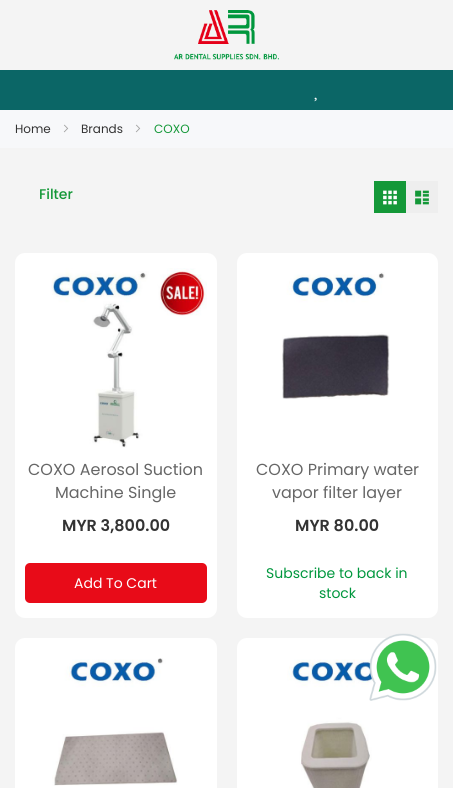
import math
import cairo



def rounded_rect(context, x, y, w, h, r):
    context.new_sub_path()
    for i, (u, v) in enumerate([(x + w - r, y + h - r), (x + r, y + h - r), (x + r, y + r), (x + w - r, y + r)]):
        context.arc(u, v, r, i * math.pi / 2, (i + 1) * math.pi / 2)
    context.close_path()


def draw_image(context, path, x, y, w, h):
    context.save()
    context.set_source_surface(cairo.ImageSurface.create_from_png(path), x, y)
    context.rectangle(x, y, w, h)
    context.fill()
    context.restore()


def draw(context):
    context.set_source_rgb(244 / 255, 244 / 255, 244 / 255)
    context.paint()
    draw_image(context, "images/1.png", 174, 10, 105, 50)
    context.set_source_rgb(11 / 255, 102 / 255, 102 / 255)
    context.rectangle(0, 70, 453, 40)
    context.fill()
    draw_image(context, "images/2.png", 314, 97, 3, 5)
    context.set_source_rgb(247 / 255, 248 / 255, 250 / 255)
    context.rectangle(0, 110, 453, 38)
    context.fill()
    draw_image(context, "images/3.png", 63, 124, 6, 9)
    draw_image(context, "images/3.png", 135, 124, 6, 9)
    context.set_source_rgb(20 / 255, 152 / 255, 56 / 255)
    context.rectangle(374, 181, 32, 32)
    context.fill()
    draw_image(context, "images/4.png", 383, 190, 14, 15)
    context.set_source_rgb(238 / 255, 238 / 255, 238 / 255)
    context.rectangle(406, 181, 32, 32)
    context.fill()
    draw_image(context, "images/5.png", 415, 190, 14, 15)
    context.set_source_rgb(1, 1, 1)
    rounded_rect(context, 15, 253, 202, 365, 10)
    context.fill()
    draw_image(context, "images/6.png", 51, 268, 156, 180)
    context.set_source_rgb(232 / 255, 11 / 255, 24 / 255)
    rounded_rect(context, 25, 563, 182, 40, 5)
    context.fill()
    context.set_source_rgb(1, 1, 1)
    rounded_rect(context, 237, 253, 201, 365, 10)
    context.fill()
    draw_image(context, "images/7.png", 282, 272, 108, 127)
    rounded_rect(context, 15, 638, 202, 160, 10)
    context.fill()
    draw_image(context, "images/8.png", 52, 658, 126, 128)
    rounded_rect(context, 237, 638, 201, 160, 10)
    context.fill()
    draw_image(context, "images/9.png", 287, 657, 98, 131)
    draw_image(context, "images/10.png", 369, 633, 68, 68)
    context.select_font_face("Poppins")
    context.set_font_size(12)
    context.set_source_rgb(51 / 255, 51 / 255, 51 / 255)
    context.move_to(15, 133)
    context.show_text("Home")
    context.move_to(81, 133)
    context.show_text("Brands")
    context.set_source_rgb(20 / 255, 152 / 255, 56 / 255)
    context.move_to(154, 133)
    context.show_text("COXO")
    context.select_font_face("Poppins Medium")
    context.set_font_size(14)
    context.move_to(39, 199)
    context.show_text("Filter")
    context.select_font_face("Poppins")
    context.set_font_size(16)
    context.set_source_rgb(102 / 255, 102 / 255, 102 / 255)
    context.move_to(28, 475)
    context.show_text("COXO Aerosol Suction")
    context.move_to(55, 498)
    context.show_text("Machine Single")
    context.select_font_face("Poppins SemiBold")
    context.set_source_rgb(51 / 255, 51 / 255, 51 / 255)
    context.move_to(62, 531)
    context.show_text("MYR 3,800.00")
    context.select_font_face("Poppins")
    context.set_font_size(14)
    context.set_source_rgb(1, 1, 1)
    context.move_to(74, 588)
    context.show_text("Add To Cart")
    context.set_font_size(16)
    context.set_source_rgb(102 / 255, 102 / 255, 102 / 255)
    context.move_to(256, 475)
    context.show_text("COXO Primary water")
    context.move_to(272, 498)
    context.show_text("vapor filter layer")
    context.select_font_face("Poppins SemiBold")
    context.set_source_rgb(51 / 255, 51 / 255, 51 / 255)
    context.move_to(295, 531)
    context.show_text("MYR 80.00")
    context.select_font_face("Poppins")
    context.set_font_size(14)
    context.set_source_rgb(0, 151 / 255, 61 / 255)
    context.move_to(266, 578)
    context.show_text("Subscribe to back in")
    context.move_to(319, 598)
    context.show_text("stock")


surface = cairo.ImageSurface(cairo.Format.RGB24, 453, 788)
context = cairo.Context(surface)
options = cairo.FontOptions()
options.set_hint_metrics(cairo.HintMetrics.OFF)
options.set_hint_style(cairo.HintStyle.NONE)
context.set_font_options(options)
context.set_miter_limit(4)
draw(context)
surface.write_to_png("out.png")
